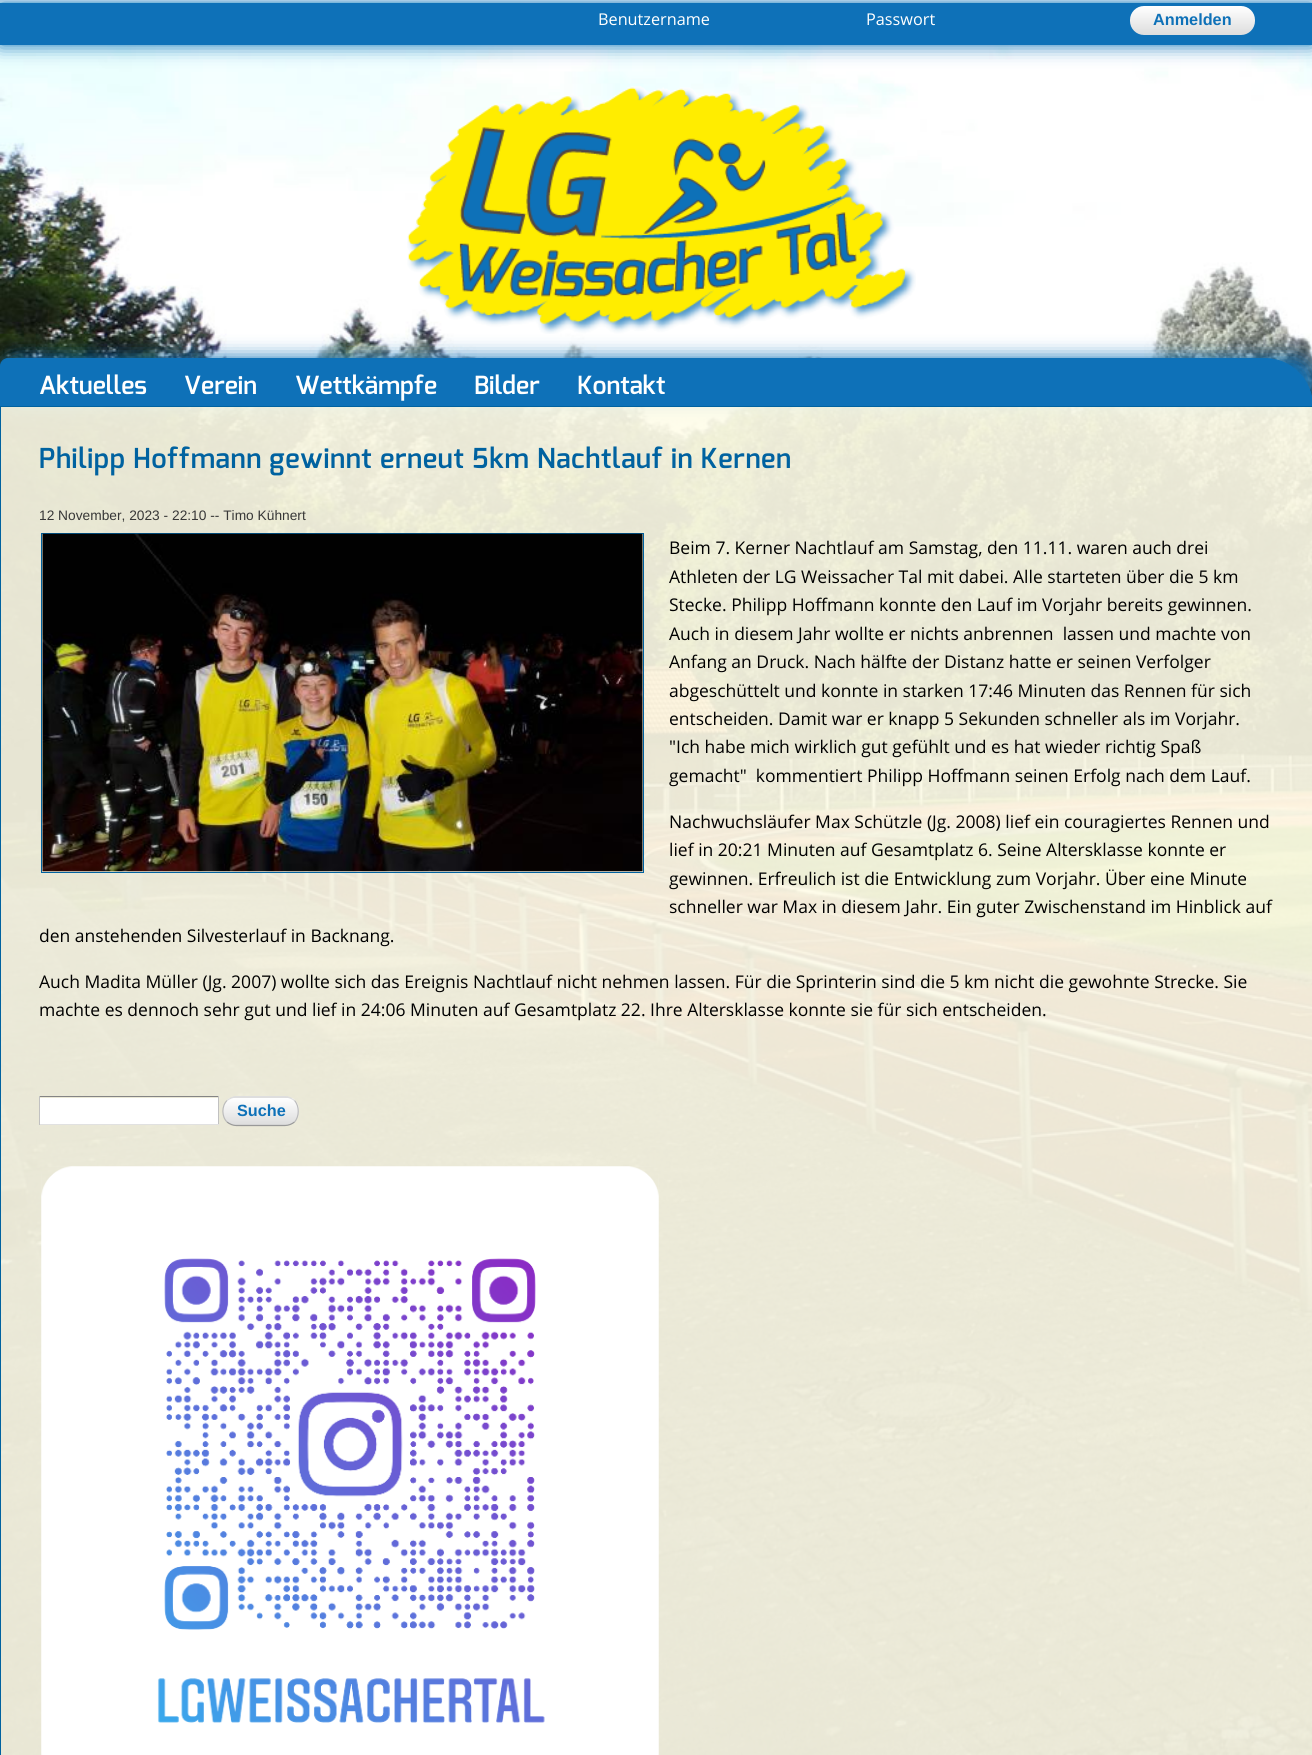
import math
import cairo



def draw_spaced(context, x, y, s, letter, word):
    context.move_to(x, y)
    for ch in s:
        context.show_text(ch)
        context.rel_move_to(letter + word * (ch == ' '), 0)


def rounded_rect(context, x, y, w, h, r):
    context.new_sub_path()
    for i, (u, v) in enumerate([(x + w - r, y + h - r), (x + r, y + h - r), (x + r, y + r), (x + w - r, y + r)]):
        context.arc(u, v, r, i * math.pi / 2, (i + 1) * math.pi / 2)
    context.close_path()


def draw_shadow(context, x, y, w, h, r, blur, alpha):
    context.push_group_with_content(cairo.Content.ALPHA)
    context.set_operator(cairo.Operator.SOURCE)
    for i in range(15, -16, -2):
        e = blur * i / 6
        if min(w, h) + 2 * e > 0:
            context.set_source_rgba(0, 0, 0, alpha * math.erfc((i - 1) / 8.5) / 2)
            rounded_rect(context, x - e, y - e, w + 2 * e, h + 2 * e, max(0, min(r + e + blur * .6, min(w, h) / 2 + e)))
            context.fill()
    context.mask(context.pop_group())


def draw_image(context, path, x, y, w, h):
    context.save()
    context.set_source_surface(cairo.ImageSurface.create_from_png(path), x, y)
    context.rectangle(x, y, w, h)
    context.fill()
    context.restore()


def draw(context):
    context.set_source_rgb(1, 1, 1)
    context.paint()
    draw_image(context, "images/1.png", 0, 2, 1312, 1753)
    context.set_source_rgb(14 / 255, 113 / 255, 184 / 255)
    draw_shadow(context, 0, 3, 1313, 42, 0, 9.5, 1)
    context.set_source_rgb(14 / 255, 113 / 255, 184 / 255)
    context.rectangle(0, 3, 1312, 42)
    context.fill()
    gradient = cairo.LinearGradient(1130, 6.2, 1130, 35)
    gradient.add_color_stop_rgba(0, 1, 1, 1, 1)
    gradient.add_color_stop_rgba(1, 221 / 255, 221 / 255, 221 / 255, 1)
    context.set_source(gradient)
    rounded_rect(context, 1130, 6, 125, 29, 14)
    context.fill()
    draw_image(context, "images/2.png", 407, 86, 509, 248)
    context.set_source_rgb(14 / 255, 113 / 255, 184 / 255)
    draw_shadow(context, 0, 358, 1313, 48, 49, 9.5, 1)
    context.set_source_rgb(14 / 255, 113 / 255, 184 / 255)
    context.new_path()
    context.move_to(8, 358.5)
    context.line_to(1265, 358.5)
    context.curve_to(1291, 358.5, 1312.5, 380, 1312.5, 406)
    context.line_to(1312.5, 405.5)
    context.line_to(0.5, 405.5)
    context.line_to(0.5, 366)
    context.curve_to(0.5, 362, 4, 358.5, 8, 358.5)
    context.close_path()
    context.fill_preserve()
    context.set_line_width(1)
    context.stroke()
    context.save()
    context.rectangle(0, 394, 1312, 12)
    context.clip()
    context.set_source_rgb(14 / 255, 113 / 255, 184 / 255)
    draw_shadow(context, 0, 406, 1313, 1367, 0, 6, 1)
    context.restore()
    context.set_source_rgba(1, 253 / 255, 233 / 255, 0.9)
    context.rectangle(0.5, 406.5, 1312, 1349)
    context.fill_preserve()
    context.set_source_rgb(0, 98 / 255, 160 / 255)
    context.stroke()
    context.rectangle(41.5, 533.5, 602, 339)
    context.stroke()
    draw_image(context, "images/3.png", 42, 533, 601, 339)
    context.set_source_rgb(1, 1, 1)
    context.rectangle(40, 1098, 178, 26)
    context.fill()
    context.set_source_rgb(132 / 255, 132 / 255, 132 / 255)
    context.rectangle(39, 1096, 180, 1)
    context.fill()
    context.set_source_rgb(193 / 255, 193 / 255, 193 / 255)
    context.rectangle(218, 1096, 1, 29)
    context.fill()
    context.set_source_rgb(225 / 255, 225 / 255, 225 / 255)
    context.rectangle(39, 1124, 180, 1)
    context.fill()
    context.set_source_rgb(193 / 255, 193 / 255, 193 / 255)
    context.rectangle(39, 1096, 1, 29)
    context.fill()
    context.save()
    rounded_rect(context, 223, 1096, 76, 30, 14)
    context.clip()
    gradient = cairo.LinearGradient(224, 1070, 224, 1098)
    gradient.add_color_stop_rgba(0, 1, 1, 1, 1)
    gradient.add_color_stop_rgba(1, 221 / 255, 221 / 255, 221 / 255, 1)
    context.set_source(gradient)
    context.rectangle(223, 1096, 76, 2)
    context.fill()
    gradient = cairo.LinearGradient(224, 1098, 224, 1125)
    gradient.add_color_stop_rgba(0, 1, 1, 1, 1)
    gradient.add_color_stop_rgba(1, 221 / 255, 221 / 255, 221 / 255, 1)
    context.set_source(gradient)
    context.rectangle(223, 1098, 76, 27)
    context.fill()
    context.restore()
    context.new_path()
    context.move_to(227, 1100.5)
    context.curve_to(229.5, 1098.5, 233, 1097, 236, 1097)
    context.line_to(285, 1097)
    context.curve_to(288.5, 1097, 292, 1098.5, 294.5, 1100.5)
    context.set_source_rgb(221 / 255, 221 / 255, 221 / 255)
    context.set_line_width(1.2)
    context.stroke()
    context.new_path()
    context.move_to(294.5, 1100.5)
    context.curve_to(299.5, 1106, 299.5, 1116.5, 294.5, 1122)
    context.set_source_rgb(187 / 255, 187 / 255, 187 / 255)
    context.stroke()
    context.new_path()
    context.move_to(294.5, 1122)
    context.curve_to(292, 1124, 288.5, 1125.5, 285, 1125.5)
    context.line_to(236, 1125.5)
    context.curve_to(233, 1125.5, 229.5, 1124, 227, 1122)
    context.set_source_rgb(153 / 255, 153 / 255, 153 / 255)
    context.stroke()
    context.new_path()
    context.move_to(227, 1122)
    context.curve_to(221.5, 1116.5, 221.5, 1106, 227, 1100.5)
    context.set_source_rgb(187 / 255, 187 / 255, 187 / 255)
    context.stroke()
    draw_image(context, "images/4.png", 41, 1166, 618, 589)
    context.select_font_face("Open Sans")
    context.set_font_size(16.25)
    context.set_source_rgb(1, 1, 1)
    context.move_to(598, 25)
    context.show_text("Benutzername")
    context.move_to(866, 25)
    context.show_text("Passwort")
    context.select_font_face("Liberation Sans", cairo.FontSlant.NORMAL, cairo.FontWeight.BOLD)
    context.set_source_rgb(14 / 255, 113 / 255, 184 / 255)
    context.move_to(1153, 25)
    context.show_text("Anmelden")
    context.select_font_face("Exo SemiBold")
    context.set_font_size(25)
    context.set_source_rgb(1, 1, 1)
    context.move_to(39, 394)
    context.show_text("Aktuelles")
    context.move_to(184, 394)
    context.show_text("Verein")
    context.move_to(295, 394)
    context.show_text("Wettkämpfe")
    context.move_to(474, 394)
    context.show_text("Bilder")
    context.move_to(577, 394)
    context.show_text("Kontakt")
    context.set_font_size(27.5)
    context.set_source_rgb(0, 98 / 255, 160 / 255)
    draw_spaced(context, 39, 468, "Philipp Hoffmann gewinnt erneut 5km Nachtlauf in Kernen", 0.62, 0)
    context.select_font_face("Liberation Sans")
    context.set_font_size(13.75)
    context.set_source_rgb(55 / 255, 55 / 255, 55 / 255)
    context.move_to(39, 520)
    context.show_text("12 November, 2023 - 22:10 -- Timo Kühnert")
    context.select_font_face("Open Sans")
    context.set_font_size(17.5)
    context.set_source_rgb(0, 0, 0)
    context.move_to(669, 554)
    context.show_text("Beim 7. Kerner Nachtlauf am Samstag, den 11.11. waren auch drei")
    context.move_to(669, 583)
    context.show_text("Athleten der LG Weissacher Tal mit dabei. Alle starteten über die 5 km")
    context.move_to(669, 611)
    context.show_text("Stecke. Philipp Hoffmann konnte den Lauf im Vorjahr bereits gewinnen.")
    context.move_to(669, 640)
    context.show_text("Auch in diesem Jahr wollte er nichts anbrennen  lassen und machte von")
    context.move_to(669, 668)
    context.show_text("Anfang an Druck. Nach hälfte der Distanz hatte er seinen Verfolger")
    context.move_to(669, 697)
    context.show_text("abgeschüttelt und konnte in starken 17:46 Minuten das Rennen für sich")
    context.move_to(669, 725)
    context.show_text("entscheiden. Damit war er knapp 5 Sekunden schneller als im Vorjahr.")
    context.move_to(669, 753)
    context.show_text("\"Ich habe mich wirklich gut gefühlt und es hat wieder richtig Spaß")
    context.move_to(669, 782)
    context.show_text("gemacht\"  kommentiert Philipp Hoffmann seinen Erfolg nach dem Lauf.")
    context.move_to(669, 828)
    context.show_text("Nachwuchsläufer Max Schützle (Jg. 2008) lief ein couragiertes Rennen und")
    context.move_to(669, 856)
    context.show_text("lief in 20:21 Minuten auf Gesamtplatz 6. Seine Altersklasse konnte er")
    context.move_to(669, 885)
    context.show_text("gewinnen. Erfreulich ist die Entwicklung zum Vorjahr. Über eine Minute")
    context.move_to(669, 913)
    context.show_text("schneller war Max in diesem Jahr. Ein guter Zwischenstand im Hinblick auf")
    context.move_to(39, 942)
    context.show_text("den anstehenden Silvesterlauf in Backnang.")
    context.move_to(39, 988)
    context.show_text("Auch Madita Müller (Jg. 2007) wollte sich das Ereignis Nachtlauf nicht nehmen lassen. Für die Sprinterin sind die 5 km nicht die gewohnte Strecke. Sie")
    context.move_to(39, 1016)
    context.show_text("machte es dennoch sehr gut und lief in 24:06 Minuten auf Gesamtplatz 22. Ihre Altersklasse konnte sie für sich entscheiden.")
    context.select_font_face("Liberation Sans", cairo.FontSlant.NORMAL, cairo.FontWeight.BOLD)
    context.set_font_size(16.25)
    context.set_source_rgb(14 / 255, 113 / 255, 184 / 255)
    context.move_to(237, 1116)
    context.show_text("Suche")


surface = cairo.ImageSurface(cairo.Format.RGB24, 1312, 1755)
context = cairo.Context(surface)
options = cairo.FontOptions()
options.set_hint_metrics(cairo.HintMetrics.OFF)
options.set_hint_style(cairo.HintStyle.NONE)
context.set_font_options(options)
context.set_miter_limit(4)
draw(context)
surface.write_to_png("out.png")
